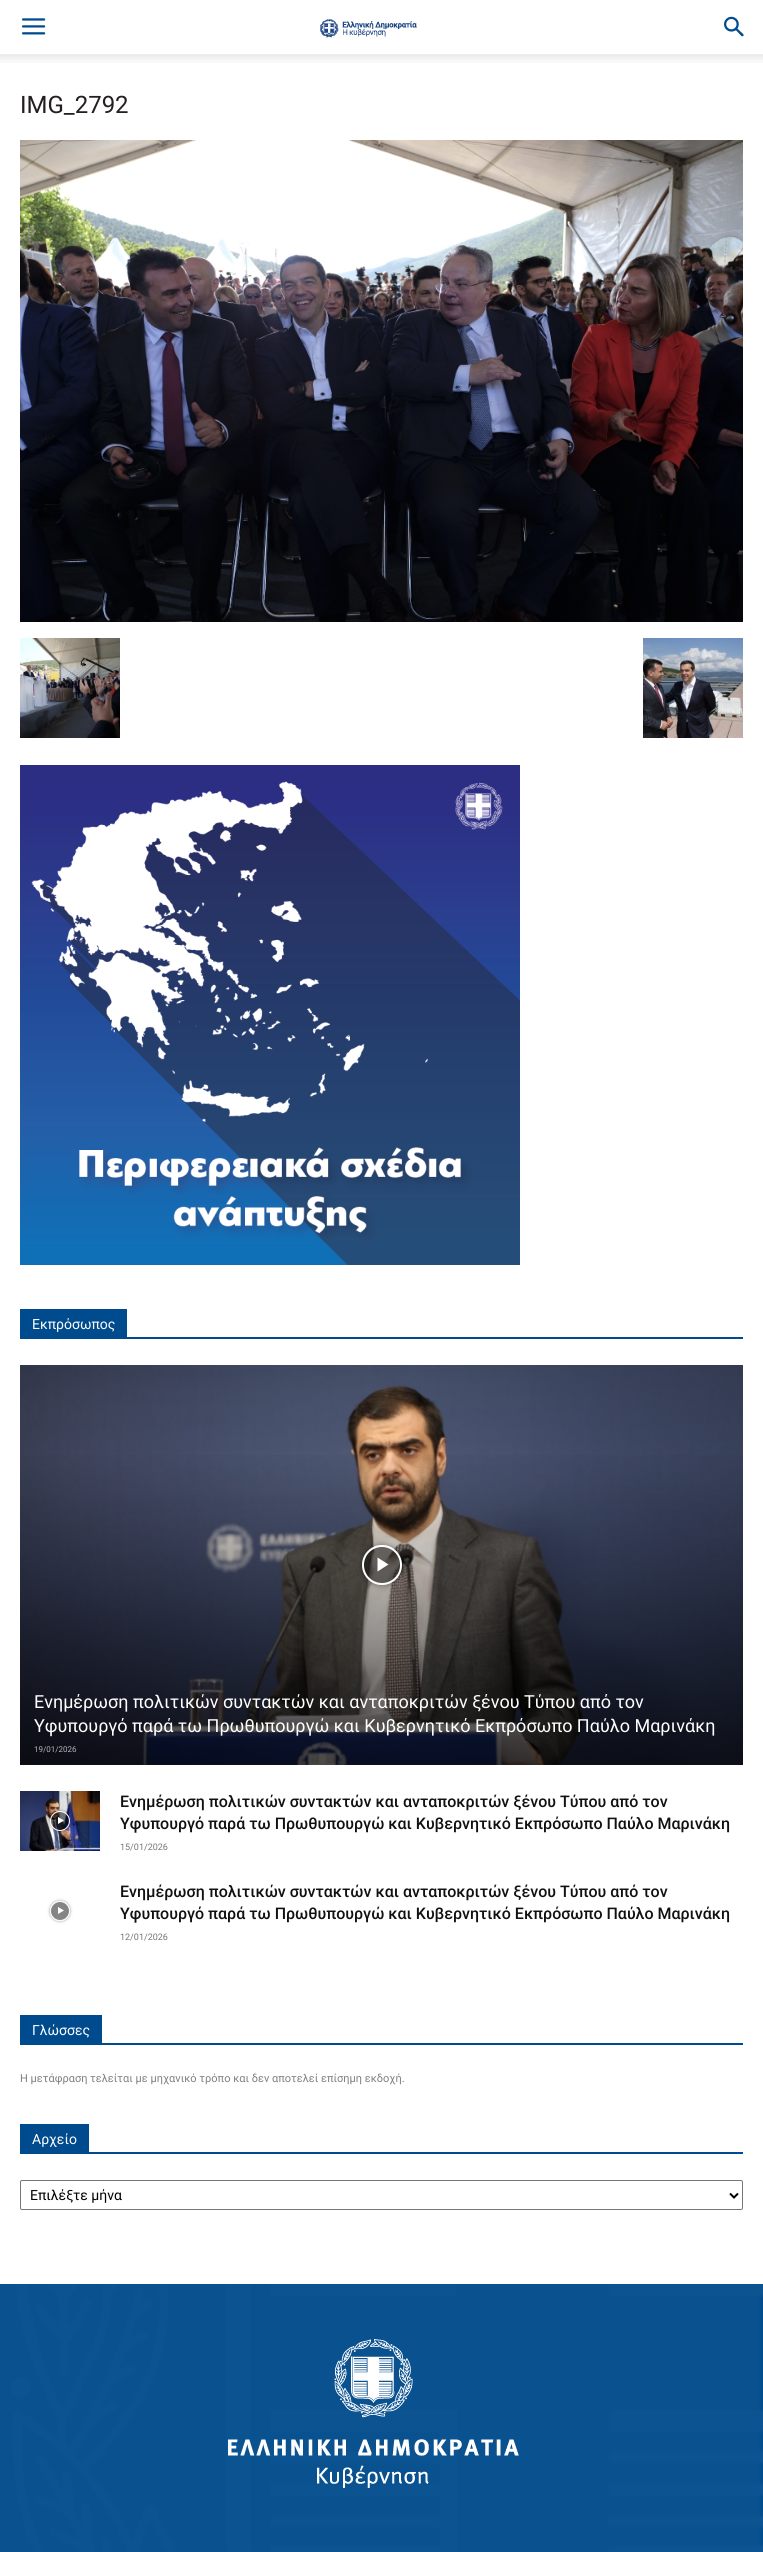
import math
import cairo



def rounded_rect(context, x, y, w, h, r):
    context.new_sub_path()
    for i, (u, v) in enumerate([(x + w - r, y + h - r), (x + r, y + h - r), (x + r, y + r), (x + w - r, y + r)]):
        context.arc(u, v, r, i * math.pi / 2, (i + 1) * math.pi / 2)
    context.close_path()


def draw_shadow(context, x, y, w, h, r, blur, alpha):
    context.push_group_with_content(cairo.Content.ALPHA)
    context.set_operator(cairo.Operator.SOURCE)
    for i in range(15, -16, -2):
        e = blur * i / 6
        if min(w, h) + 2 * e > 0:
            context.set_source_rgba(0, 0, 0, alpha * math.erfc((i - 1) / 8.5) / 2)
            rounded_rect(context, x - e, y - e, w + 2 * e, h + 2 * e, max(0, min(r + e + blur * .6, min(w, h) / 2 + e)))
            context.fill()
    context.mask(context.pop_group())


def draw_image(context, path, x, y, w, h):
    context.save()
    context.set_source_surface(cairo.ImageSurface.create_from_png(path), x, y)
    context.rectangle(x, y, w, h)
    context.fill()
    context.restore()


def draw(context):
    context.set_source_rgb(1, 1, 1)
    context.paint()
    draw_image(context, "images/1.png", 22, 18, 24, 17)
    draw_image(context, "images/2.png", 320, 19, 97, 19)
    draw_image(context, "images/3.png", 724, 16, 20, 21)
    draw_image(context, "images/4.png", 0, 54, 763, 9)
    draw_image(context, "images/5.png", 20, 140, 723, 482)
    draw_image(context, "images/6.png", 20, 638, 100, 100)
    draw_image(context, "images/7.png", 643, 638, 100, 100)
    draw_image(context, "images/8.png", 20, 765, 500, 500)
    context.set_source_rgb(0, 75 / 255, 141 / 255)
    context.rectangle(20, 1337, 723, 2)
    context.fill()
    context.rectangle(20, 1309, 107, 28)
    context.fill()
    draw_image(context, "images/9.png", 20, 1365, 723, 400)
    gradient = cairo.LinearGradient(382, 1445, 382, 1765)
    gradient.add_color_stop_rgba(0, 0, 0, 0, 0)
    gradient.add_color_stop_rgba(1, 0, 0, 0, 0.7)
    context.set_source(gradient)
    context.rectangle(20, 1455, 723, 310)
    context.fill()
    context.save()
    context.set_fill_rule(cairo.FillRule.EVEN_ODD)
    context.new_path()
    context.move_to(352, 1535)
    context.line_to(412, 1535)
    context.line_to(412, 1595)
    context.line_to(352, 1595)
    context.close_path()
    context.move_to(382, 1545)
    context.curve_to(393, 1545, 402, 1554, 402, 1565)
    context.curve_to(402, 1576, 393, 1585, 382, 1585)
    context.curve_to(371, 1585, 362, 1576, 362, 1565)
    context.curve_to(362, 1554, 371, 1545, 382, 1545)
    context.close_path()
    context.clip()
    context.set_source_rgb(0, 0, 0)
    draw_shadow(context, 362, 1545, 40, 40, 20, 3, 0.4)
    context.restore()
    context.set_source_rgba(0, 0, 0, 0.48)
    context.arc(382, 1565, 19, 0, 2 * math.pi)
    context.fill_preserve()
    context.set_source_rgb(1, 1, 1)
    context.stroke()
    context.new_path()
    context.move_to(377.5, 1557.5)
    context.line_to(377.5, 1571.5)
    context.line_to(388.5, 1564.5)
    context.close_path()
    context.fill()
    draw_image(context, "images/10.png", 20, 1791, 80, 60)
    context.save()
    context.set_fill_rule(cairo.FillRule.EVEN_ODD)
    context.new_path()
    context.move_to(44, 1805)
    context.line_to(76, 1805)
    context.line_to(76, 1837)
    context.line_to(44, 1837)
    context.close_path()
    context.move_to(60, 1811)
    context.curve_to(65.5, 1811, 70, 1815.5, 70, 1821)
    context.curve_to(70, 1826.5, 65.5, 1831, 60, 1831)
    context.curve_to(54.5, 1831, 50, 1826.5, 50, 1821)
    context.curve_to(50, 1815.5, 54.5, 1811, 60, 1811)
    context.close_path()
    context.clip()
    context.set_source_rgb(0, 0, 0)
    draw_shadow(context, 50, 1811, 20, 20, 10, 1.5, 0.4)
    context.restore()
    context.set_source_rgba(0, 0, 0, 0.48)
    context.arc(60, 1821, 9.5, 0, 2 * math.pi)
    context.fill_preserve()
    context.set_source_rgb(1, 1, 1)
    context.set_line_width(1)
    context.stroke()
    context.new_path()
    context.move_to(58, 1817)
    context.line_to(58, 1824)
    context.line_to(64, 1820.5)
    context.close_path()
    context.fill()
    context.save()
    context.set_fill_rule(cairo.FillRule.EVEN_ODD)
    context.new_path()
    context.move_to(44, 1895)
    context.line_to(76, 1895)
    context.line_to(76, 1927)
    context.line_to(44, 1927)
    context.close_path()
    context.move_to(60, 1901)
    context.curve_to(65.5, 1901, 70, 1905.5, 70, 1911)
    context.curve_to(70, 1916.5, 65.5, 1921, 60, 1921)
    context.curve_to(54.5, 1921, 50, 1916.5, 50, 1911)
    context.curve_to(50, 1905.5, 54.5, 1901, 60, 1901)
    context.close_path()
    context.clip()
    context.set_source_rgb(0, 0, 0)
    draw_shadow(context, 50, 1901, 20, 20, 10, 1.5, 0.4)
    context.restore()
    context.set_source_rgba(0, 0, 0, 0.48)
    context.arc(60, 1911, 9.5, 0, 2 * math.pi)
    context.fill_preserve()
    context.set_source_rgb(1, 1, 1)
    context.stroke()
    context.new_path()
    context.move_to(58, 1907)
    context.line_to(58, 1914)
    context.line_to(64, 1910.5)
    context.close_path()
    context.fill()
    context.set_source_rgb(0, 75 / 255, 141 / 255)
    context.rectangle(20, 2043, 723, 2)
    context.fill()
    context.rectangle(20, 2015, 82, 28)
    context.fill()
    context.rectangle(20, 2152, 723, 2)
    context.fill()
    context.rectangle(20, 2124, 69, 28)
    context.fill()
    rounded_rect(context, 20.5, 2180.5, 722, 29, 1.5)
    context.set_source_rgb(118 / 255, 118 / 255, 118 / 255)
    context.stroke()
    context.new_path()
    context.move_to(730, 2193.5)
    context.line_to(734, 2197.5)
    context.line_to(738, 2193.5)
    context.set_source_rgb(0, 0, 0)
    context.set_line_width(2)
    context.stroke()
    context.set_source_rgb(0, 75 / 255, 141 / 255)
    context.rectangle(0, 2284, 763, 268)
    context.fill()
    draw_image(context, "images/11.png", 0, 2284, 763, 268)
    draw_image(context, "images/12.png", 228, 2339, 291, 149)
    context.select_font_face("Roboto")
    context.set_font_size(24)
    context.set_source_rgb(35 / 255, 31 / 255, 32 / 255)
    context.move_to(20, 113)
    context.show_text("IMG_2792")
    context.set_font_size(14)
    context.set_source_rgb(1, 1, 1)
    context.move_to(32, 1329)
    context.show_text("Εκπρόσωπος")
    context.set_font_size(18)
    context.move_to(34, 1708)
    context.show_text("Ενημέρωση πολιτικών συντακτών και ανταποκριτών ξένου Τύπου από τον")
    context.move_to(34, 1732)
    context.show_text("Υφυπουργό παρά τω Πρωθυπουργώ και Κυβερνητικό Εκπρόσωπο Παύλο Μαρινάκη")
    context.set_font_size(8)
    context.set_source_rgb(182 / 255, 183 / 255, 185 / 255)
    context.move_to(34, 1752)
    context.show_text("19/01/2026")
    context.select_font_face("Roboto Medium")
    context.set_font_size(16)
    context.set_source_rgb(17 / 255, 17 / 255, 17 / 255)
    context.move_to(120, 1807)
    context.show_text("Ενημέρωση πολιτικών συντακτών και ανταποκριτών ξένου Τύπου από τον")
    context.move_to(120, 1829)
    context.show_text("Υφυπουργό παρά τω Πρωθυπουργώ και Κυβερνητικό Εκπρόσωπο Παύλο Μαρινάκη")
    context.select_font_face("Roboto")
    context.set_font_size(9)
    context.set_source_rgb(118 / 255, 118 / 255, 118 / 255)
    context.move_to(120, 1850)
    context.show_text("15/01/2026")
    context.select_font_face("Roboto Medium")
    context.set_font_size(16)
    context.set_source_rgb(17 / 255, 17 / 255, 17 / 255)
    context.move_to(120, 1897)
    context.show_text("Ενημέρωση πολιτικών συντακτών και ανταποκριτών ξένου Τύπου από τον")
    context.move_to(120, 1919)
    context.show_text("Υφυπουργό παρά τω Πρωθυπουργώ και Κυβερνητικό Εκπρόσωπο Παύλο Μαρινάκη")
    context.select_font_face("Roboto")
    context.set_font_size(9)
    context.set_source_rgb(118 / 255, 118 / 255, 118 / 255)
    context.move_to(120, 1940)
    context.show_text("12/01/2026")
    context.set_font_size(14)
    context.set_source_rgb(1, 1, 1)
    context.move_to(32, 2035)
    context.show_text("Γλώσσες")
    context.set_font_size(11)
    context.set_source_rgb(128 / 255, 128 / 255, 128 / 255)
    context.move_to(20, 2082)
    context.show_text("Η μετάφραση τελείται με μηχανικό τρόπο και δεν αποτελεί επίσημη εκδοχή.")
    context.set_font_size(14)
    context.set_source_rgb(1, 1, 1)
    context.move_to(32, 2144)
    context.show_text("Αρχείο")
    context.set_source_rgb(0, 0, 0)
    context.move_to(30, 2200)
    context.show_text("Επιλέξτε μήνα")


surface = cairo.ImageSurface(cairo.Format.RGB24, 763, 2552)
context = cairo.Context(surface)
options = cairo.FontOptions()
options.set_hint_metrics(cairo.HintMetrics.OFF)
options.set_hint_style(cairo.HintStyle.NONE)
context.set_font_options(options)
context.set_miter_limit(4)
draw(context)
surface.write_to_png("out.png")
